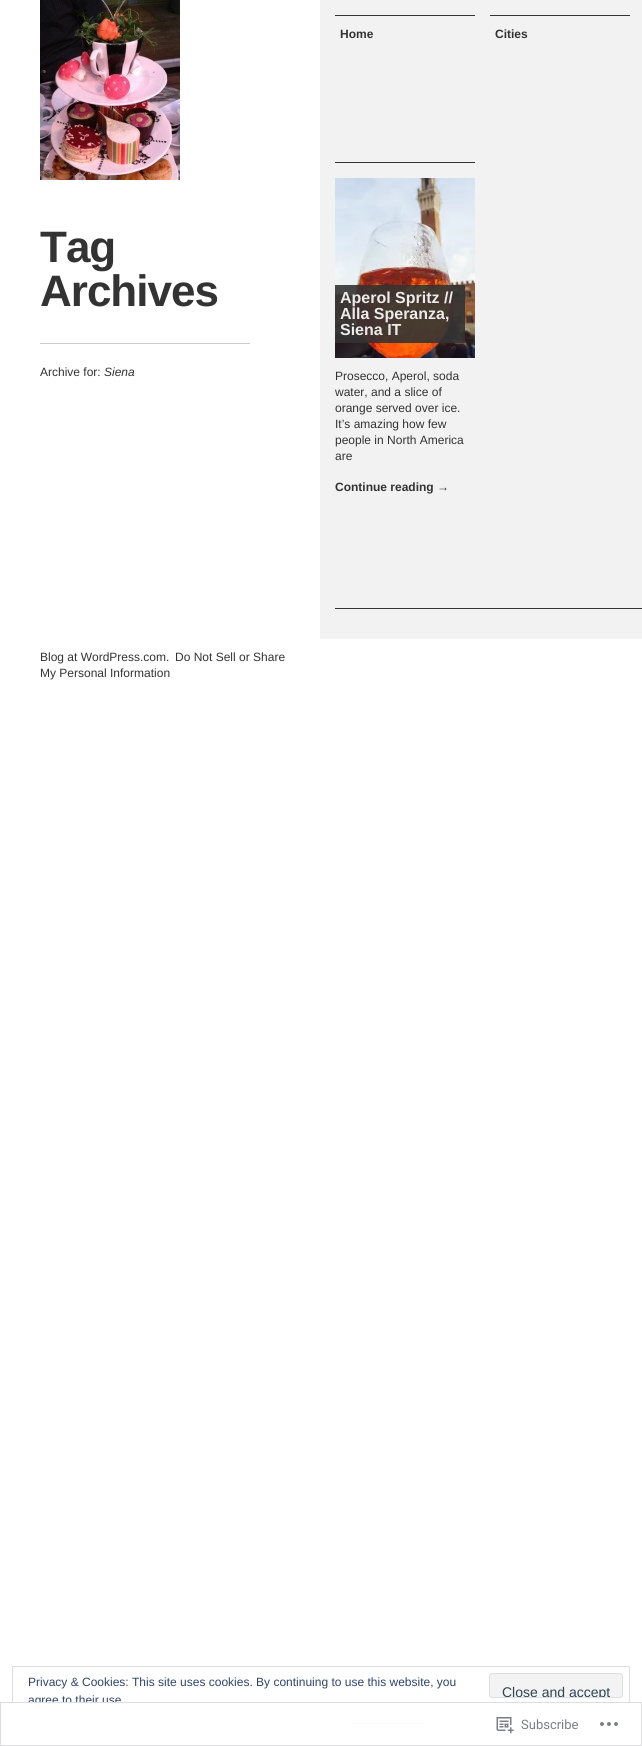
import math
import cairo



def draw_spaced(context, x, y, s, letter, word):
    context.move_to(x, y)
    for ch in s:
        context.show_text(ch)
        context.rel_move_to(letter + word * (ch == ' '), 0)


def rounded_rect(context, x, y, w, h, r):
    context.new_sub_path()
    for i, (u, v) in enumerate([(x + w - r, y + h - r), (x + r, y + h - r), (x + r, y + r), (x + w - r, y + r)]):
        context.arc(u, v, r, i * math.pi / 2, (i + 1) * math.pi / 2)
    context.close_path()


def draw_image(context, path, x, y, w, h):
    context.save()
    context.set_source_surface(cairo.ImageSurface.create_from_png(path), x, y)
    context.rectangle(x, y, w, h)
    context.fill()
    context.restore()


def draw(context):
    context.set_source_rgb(1, 1, 1)
    context.paint()
    context.set_source_rgb(242 / 255, 242 / 255, 242 / 255)
    context.rectangle(320, 0, 322, 639)
    context.fill()
    draw_image(context, "images/1.png", 40, 0, 140, 180)
    context.set_source_rgb(204 / 255, 204 / 255, 204 / 255)
    context.rectangle(40, 343, 210, 1)
    context.fill()
    context.set_source_rgb(51 / 255, 51 / 255, 51 / 255)
    context.rectangle(335, 15, 140, 1)
    context.fill()
    context.rectangle(490, 15, 140, 1)
    context.fill()
    context.rectangle(335, 162, 140, 1)
    context.fill()
    draw_image(context, "images/2.png", 335, 178, 140, 180)
    context.set_source_rgba(51 / 255, 51 / 255, 51 / 255, 0.9)
    context.rectangle(335, 285, 130, 58)
    context.fill()
    context.set_source_rgb(51 / 255, 51 / 255, 51 / 255)
    context.rectangle(335, 608, 307, 1)
    context.fill()
    context.rectangle(12.5, 1666.5, 617, 67)
    context.set_source_rgb(222 / 255, 222 / 255, 222 / 255)
    context.set_line_width(1)
    context.stroke()
    context.set_source_rgb(243 / 255, 243 / 255, 243 / 255)
    rounded_rect(context, 489.5, 1673.5, 133, 24, 2.5)
    context.fill_preserve()
    context.set_source_rgb(222 / 255, 222 / 255, 222 / 255)
    context.stroke()
    context.set_source_rgb(46 / 255, 68 / 255, 103 / 255)
    context.rectangle(352, 1723, 72, 1)
    context.fill()
    context.select_font_face("Liberation Sans", cairo.FontSlant.NORMAL, cairo.FontWeight.BOLD)
    context.set_font_size(44)
    context.set_source_rgb(51 / 255, 51 / 255, 51 / 255)
    draw_spaced(context, 40, 262, "Tag", -1, 0)
    draw_spaced(context, 40, 306, "Archives", -1, 0)
    context.select_font_face("Liberation Sans")
    context.set_font_size(12)
    context.move_to(40, 376)
    context.show_text("Archive for:")
    context.select_font_face("Liberation Sans", cairo.FontSlant.ITALIC)
    context.move_to(104, 376)
    context.show_text("Siena")
    context.select_font_face("Liberation Sans", cairo.FontSlant.NORMAL, cairo.FontWeight.BOLD)
    context.move_to(340, 38)
    context.show_text("Home")
    context.move_to(495, 38)
    context.show_text("Cities")
    context.set_font_size(16)
    context.set_source_rgb(236 / 255, 235 / 255, 234 / 255)
    context.move_to(340, 303)
    context.show_text("Aperol Spritz //")
    context.move_to(340, 319)
    context.show_text("Alla Speranza,")
    context.move_to(340, 335)
    context.show_text("Siena IT")
    context.select_font_face("Liberation Sans")
    context.set_font_size(12)
    context.set_source_rgb(51 / 255, 51 / 255, 51 / 255)
    context.move_to(335, 380)
    context.show_text("Prosecco, Aperol, soda")
    context.move_to(335, 396)
    context.show_text("water, and a slice of")
    context.move_to(335, 412)
    context.show_text("orange served over ice.")
    context.move_to(335, 428)
    context.show_text("It’s amazing how few")
    context.move_to(335, 444)
    context.show_text("people in North America")
    context.move_to(335, 460)
    context.show_text("are")
    context.select_font_face("Liberation Sans", cairo.FontSlant.NORMAL, cairo.FontWeight.BOLD)
    context.move_to(335, 491)
    context.show_text("Continue reading →")
    context.select_font_face("Liberation Sans")
    context.move_to(40, 661)
    context.show_text("Blog at WordPress.com.")
    context.move_to(175, 661)
    context.show_text("Do Not Sell or Share")
    context.move_to(40, 677)
    context.show_text("My Personal Information")
    context.set_source_rgb(46 / 255, 68 / 255, 103 / 255)
    context.move_to(28, 1686)
    context.show_text("Privacy & Cookies: This site uses cookies. By continuing to use this website, you")
    context.save()
    rounded_rect(context, 490, 1674, 132, 23, 2)
    context.clip()
    context.set_font_size(14)
    context.set_source_rgb(46 / 255, 68 / 255, 83 / 255)
    context.move_to(502, 1697)
    context.show_text("Close and accept")
    context.restore()
    context.move_to(28, 1704)
    context.show_text("agree to their use")
    context.set_source_rgba(1, 1, 1, 0.98)
    context.rectangle(12, 1702, 618, 32)
    context.fill()
    context.rectangle(0.5, 1702.5, 641, 43)
    context.set_source_rgba(220 / 255, 220 / 255, 222 / 255, 0.98)
    context.stroke()
    draw_image(context, "images/3.png", 496, 1717, 18, 17)
    context.select_font_face("Roboto")
    context.set_font_size(13)
    context.set_source_rgb(123 / 255, 127 / 255, 133 / 255)
    context.move_to(521, 1729)
    context.show_text("Subscribe")
    draw_image(context, "images/4.png", 600, 1722, 18, 4)


surface = cairo.ImageSurface(cairo.Format.RGB24, 642, 1746)
context = cairo.Context(surface)
options = cairo.FontOptions()
options.set_hint_metrics(cairo.HintMetrics.OFF)
options.set_hint_style(cairo.HintStyle.NONE)
context.set_font_options(options)
context.set_miter_limit(4)
draw(context)
surface.write_to_png("out.png")
